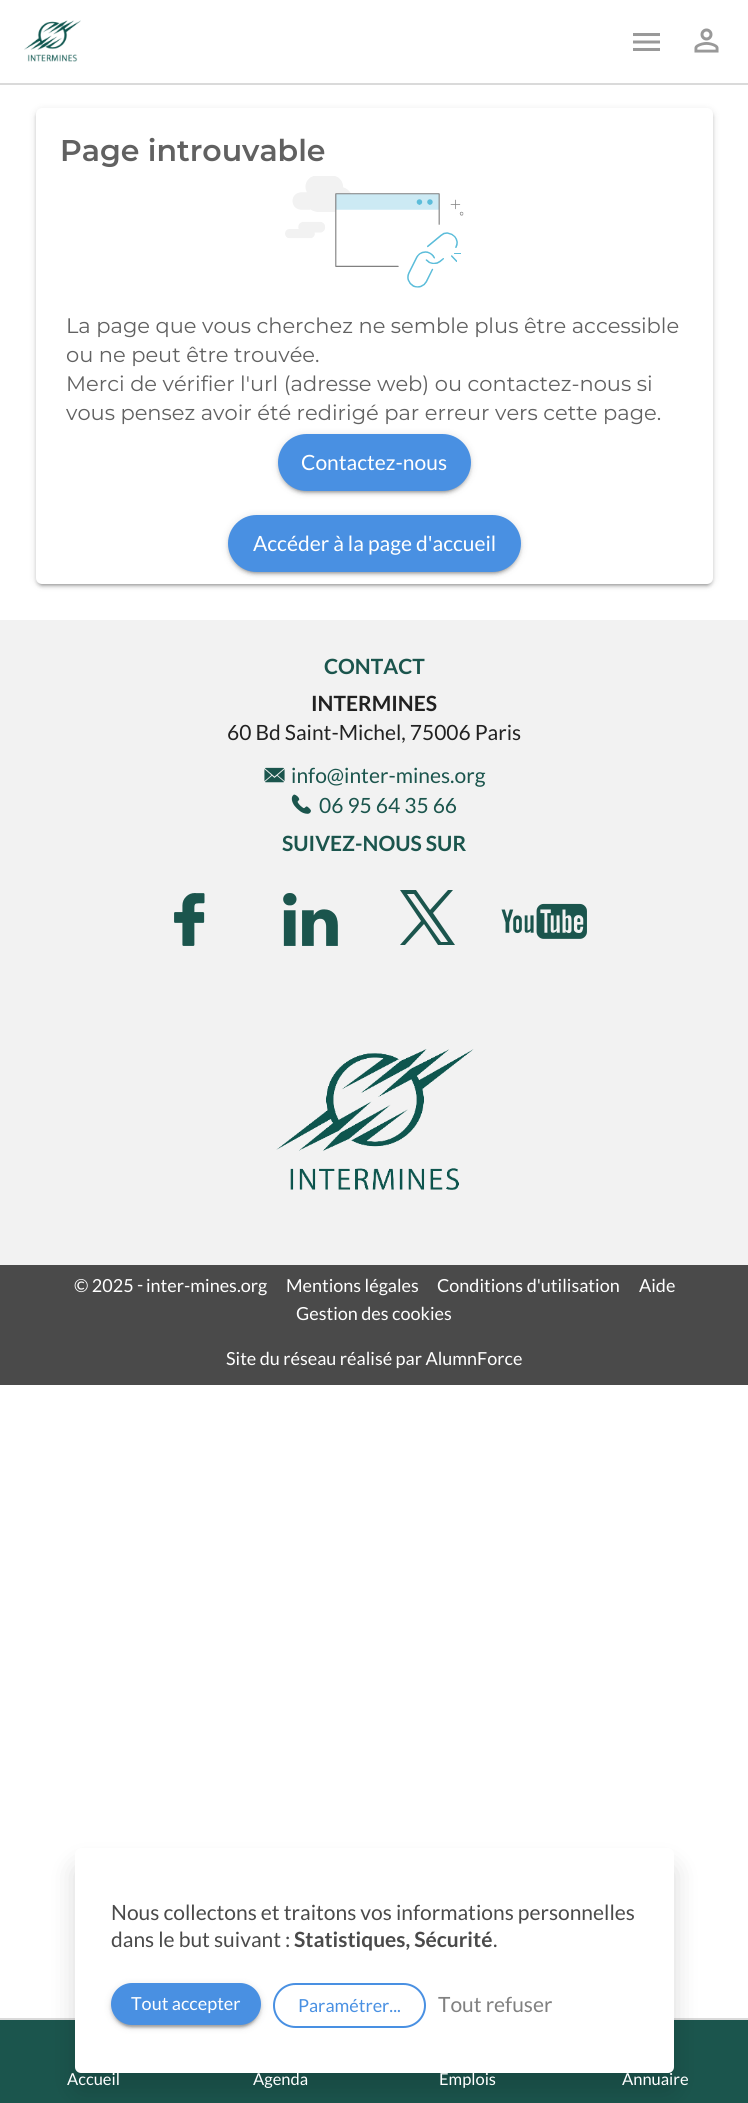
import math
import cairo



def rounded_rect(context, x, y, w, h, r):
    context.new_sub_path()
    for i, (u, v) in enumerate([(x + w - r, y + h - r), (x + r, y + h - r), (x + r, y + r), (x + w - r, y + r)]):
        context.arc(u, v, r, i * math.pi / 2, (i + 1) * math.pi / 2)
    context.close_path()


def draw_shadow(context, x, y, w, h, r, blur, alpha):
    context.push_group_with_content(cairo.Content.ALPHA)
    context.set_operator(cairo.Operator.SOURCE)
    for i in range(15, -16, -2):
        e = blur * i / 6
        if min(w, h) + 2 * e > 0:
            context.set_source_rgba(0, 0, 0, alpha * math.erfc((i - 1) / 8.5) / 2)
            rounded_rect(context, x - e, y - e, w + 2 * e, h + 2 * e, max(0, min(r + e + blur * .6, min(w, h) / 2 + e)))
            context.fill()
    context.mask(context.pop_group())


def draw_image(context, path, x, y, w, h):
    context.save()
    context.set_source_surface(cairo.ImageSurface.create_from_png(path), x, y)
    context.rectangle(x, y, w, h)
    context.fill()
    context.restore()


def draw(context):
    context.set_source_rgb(1, 1, 1)
    context.paint()
    context.set_source_rgb(0, 0, 0)
    draw_shadow(context, 36, 110, 677, 475, 6, 4, 0.12)
    draw_shadow(context, 36, 111, 677, 476, 6, 1.5, 0.14)
    draw_shadow(context, 39, 116, 671, 469, 3, 1, 0.2)
    context.set_source_rgb(1, 1, 1)
    rounded_rect(context, 36, 108, 677, 476, 6)
    context.fill()
    draw_image(context, "images/1.png", 285, 176, 179, 112)
    context.set_source_rgb(0, 0, 0)
    draw_shadow(context, 278, 435, 193, 57, 28.5, 4, 0.12)
    draw_shadow(context, 278, 437, 193, 57, 28.5, 1.5, 0.14)
    draw_shadow(context, 281, 441, 187, 51, 25.5, 1, 0.2)
    context.set_source_rgb(73 / 255, 144 / 255, 226 / 255)
    rounded_rect(context, 278, 434, 193, 57, 28.5)
    context.fill()
    context.set_source_rgb(0, 0, 0)
    draw_shadow(context, 228, 516, 293, 57, 28.5, 4, 0.12)
    draw_shadow(context, 228, 518, 293, 57, 28.5, 1.5, 0.14)
    draw_shadow(context, 231, 522, 287, 51, 25.5, 1, 0.2)
    context.set_source_rgb(73 / 255, 144 / 255, 226 / 255)
    rounded_rect(context, 228, 515, 293, 57, 28.5)
    context.fill()
    context.set_source_rgb(242 / 255, 242 / 255, 242 / 255)
    context.rectangle(0, 620, 748, 645)
    context.fill()
    draw_image(context, "images/2.png", 264, 767, 21, 16)
    draw_image(context, "images/3.png", 291, 794, 20, 20)
    draw_image(context, "images/4.png", 174, 893, 31, 53)
    draw_image(context, "images/5.png", 283, 893, 55, 53)
    context.set_source_rgb(27 / 255, 85 / 255, 77 / 255)
    context.new_path()
    context.move_to(433, 913)
    context.line_to(453, 890)
    context.line_to(448, 890)
    context.line_to(430, 910)
    context.line_to(416, 890)
    context.line_to(400, 890)
    context.line_to(421, 921)
    context.line_to(400, 945)
    context.line_to(405, 945)
    context.line_to(424, 924)
    context.line_to(438, 945)
    context.line_to(455, 945)
    context.close_path()
    context.move_to(426, 921)
    context.line_to(407, 894)
    context.line_to(414, 894)
    context.line_to(448, 942)
    context.line_to(441, 942)
    context.close_path()
    context.fill()
    draw_image(context, "images/6.png", 501, 903, 86, 36)
    draw_image(context, "images/7.png", 276, 1049, 198, 141)
    context.set_source_rgb(74 / 255, 74 / 255, 74 / 255)
    context.rectangle(0, 1265, 748, 120)
    context.fill()
    context.set_source_rgb(218 / 255, 218 / 255, 218 / 255)
    context.rectangle(0, 83, 748, 2)
    context.fill()
    draw_image(context, "images/8.png", 24, 20, 57, 42)
    draw_image(context, "images/9.png", 633, 33, 27, 18)
    draw_image(context, "images/10.png", 694, 28, 25, 25)
    context.set_source_rgb(27 / 255, 85 / 255, 77 / 255)
    context.rectangle(0, 2020, 748, 83)
    context.fill()
    context.set_source_rgb(218 / 255, 218 / 255, 218 / 255)
    context.rectangle(0, 2018, 748, 2)
    context.fill()
    context.set_source_rgb(0, 0, 0)
    draw_shadow(context, 75, 1866, 599, 225, 6, 13, 0.15)
    context.set_source_rgb(1, 1, 1)
    rounded_rect(context, 75, 1848, 599, 225, 6)
    context.fill()
    context.set_source_rgb(0, 0, 0)
    draw_shadow(context, 111, 1985, 150, 42, 21, 4, 0.12)
    draw_shadow(context, 111, 1986, 150, 42, 21, 1.5, 0.14)
    draw_shadow(context, 114, 1991, 144, 36, 18, 1, 0.2)
    context.set_source_rgb(73 / 255, 144 / 255, 226 / 255)
    rounded_rect(context, 112, 1984, 148, 40, 20)
    context.fill_preserve()
    context.stroke()
    rounded_rect(context, 274, 1984, 151, 43, 21.5)
    context.stroke()
    context.select_font_face("Montserrat SemiBold")
    context.set_font_size(30)
    context.set_source_rgb(97 / 255, 97 / 255, 97 / 255)
    context.move_to(60, 161)
    context.show_text("Page introuvable")
    context.select_font_face("Montserrat")
    context.set_font_size(21)
    context.move_to(66, 333)
    context.show_text("La page que vous cherchez ne semble plus être accessible")
    context.move_to(66, 362)
    context.show_text("ou ne peut être trouvée.")
    context.move_to(66, 391)
    context.show_text("Merci de vérifier l'url (adresse web) ou contactez-nous si")
    context.move_to(66, 420)
    context.show_text("vous pensez avoir été redirigé par erreur vers cette page.")
    context.select_font_face("Lato")
    context.set_source_rgb(1, 1, 1)
    context.move_to(301, 470)
    context.show_text("Contactez-nous")
    context.move_to(253, 551)
    context.show_text("Accéder à la page d'accueil")
    context.select_font_face("Lato", cairo.FontSlant.NORMAL, cairo.FontWeight.BOLD)
    context.set_source_rgb(27 / 255, 85 / 255, 77 / 255)
    context.move_to(324, 674)
    context.show_text("CONTACT")
    context.set_source_rgb(33 / 255, 33 / 255, 33 / 255)
    context.move_to(311, 711)
    context.show_text("INTERMINES")
    context.select_font_face("Lato")
    context.move_to(227, 740)
    context.show_text("60 Bd Saint-Michel, 75006 Paris")
    context.set_source_rgb(27 / 255, 85 / 255, 77 / 255)
    context.move_to(291, 783)
    context.show_text("info@inter-mines.org")
    context.move_to(319, 813)
    context.show_text("06 95 64 35 66")
    context.select_font_face("Lato", cairo.FontSlant.NORMAL, cairo.FontWeight.BOLD)
    context.move_to(282, 851)
    context.show_text("SUIVEZ-NOUS SUR")
    context.select_font_face("Lato")
    context.set_font_size(18)
    context.set_source_rgb(1, 1, 1)
    context.move_to(74, 1292)
    context.show_text("© 2025")
    context.move_to(137, 1291)
    context.show_text("-")
    context.move_to(146, 1292)
    context.show_text("inter-mines.org")
    context.move_to(286, 1292)
    context.show_text("Mentions légales")
    context.move_to(437, 1292)
    context.show_text("Conditions d'utilisation")
    context.move_to(639, 1292)
    context.show_text("Aide")
    context.move_to(296, 1320)
    context.show_text("Gestion des cookies")
    context.move_to(226, 1365)
    context.show_text("Site du réseau réalisé par AlumnForce")
    context.set_font_size(16.5)
    context.move_to(67, 2085)
    context.show_text("Accueil")
    context.move_to(253, 2085)
    context.show_text("Agenda")
    context.move_to(439, 2085)
    context.show_text("Emplois")
    context.move_to(622, 2085)
    context.show_text("Annuaire")
    context.set_font_size(21)
    context.set_source_rgb(74 / 255, 74 / 255, 74 / 255)
    context.move_to(111, 1920)
    context.show_text("Nous collectons et traitons vos informations personnelles")
    context.move_to(111, 1947)
    context.show_text("dans le but suivant :")
    context.select_font_face("Lato", cairo.FontSlant.NORMAL, cairo.FontWeight.BOLD)
    context.move_to(294, 1947)
    context.show_text("Statistiques, Sécurité")
    context.select_font_face("Lato")
    context.move_to(493, 1947)
    context.show_text(".")
    context.set_font_size(18)
    context.set_source_rgb(1, 1, 1)
    context.move_to(131, 2010)
    context.show_text("Tout accepter")
    context.set_source_rgb(73 / 255, 144 / 255, 226 / 255)
    context.move_to(298, 2012)
    context.show_text("Paramétrer...")
    context.set_font_size(21)
    context.set_source_rgb(128 / 255, 128 / 255, 128 / 255)
    context.move_to(438, 2012)
    context.show_text("Tout refuser")


surface = cairo.ImageSurface(cairo.Format.RGB24, 748, 2103)
context = cairo.Context(surface)
options = cairo.FontOptions()
options.set_hint_metrics(cairo.HintMetrics.OFF)
options.set_hint_style(cairo.HintStyle.NONE)
context.set_font_options(options)
context.set_miter_limit(4)
draw(context)
surface.write_to_png("out.png")
